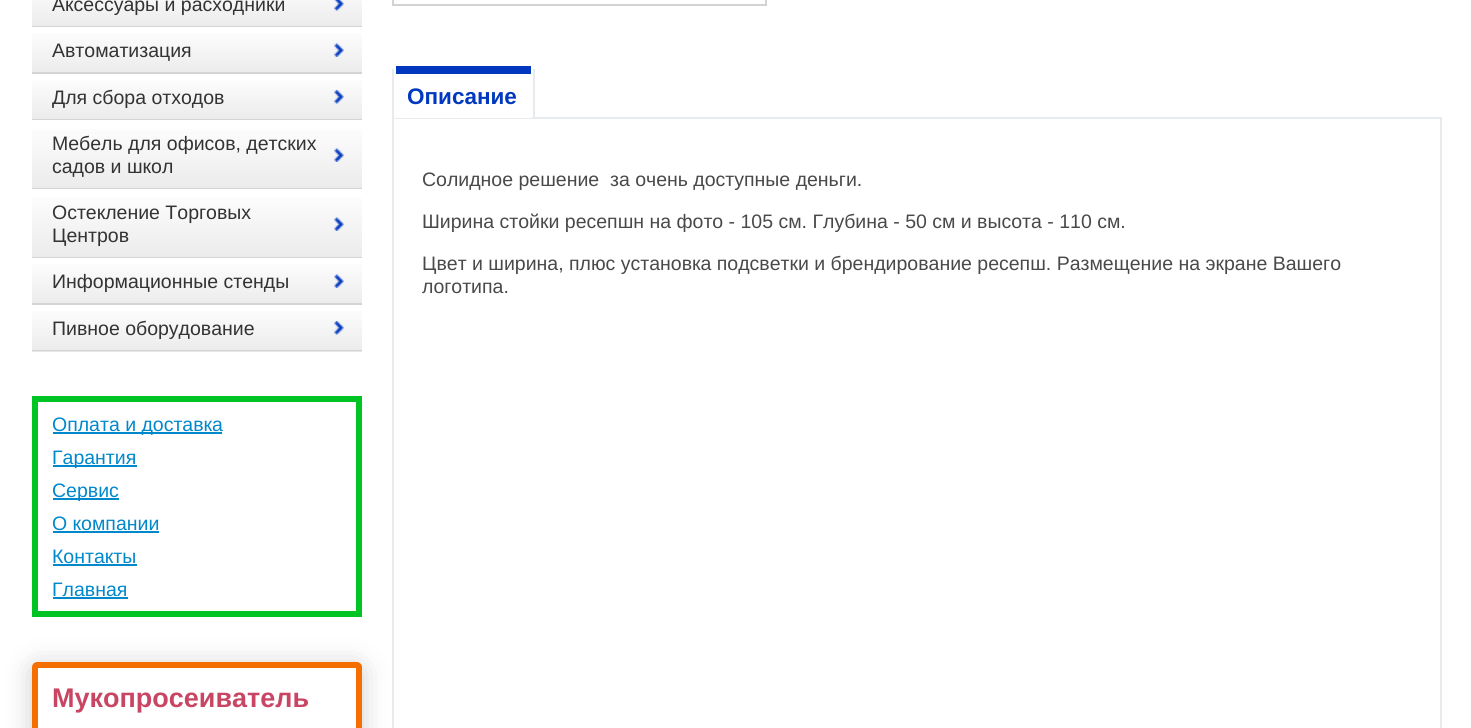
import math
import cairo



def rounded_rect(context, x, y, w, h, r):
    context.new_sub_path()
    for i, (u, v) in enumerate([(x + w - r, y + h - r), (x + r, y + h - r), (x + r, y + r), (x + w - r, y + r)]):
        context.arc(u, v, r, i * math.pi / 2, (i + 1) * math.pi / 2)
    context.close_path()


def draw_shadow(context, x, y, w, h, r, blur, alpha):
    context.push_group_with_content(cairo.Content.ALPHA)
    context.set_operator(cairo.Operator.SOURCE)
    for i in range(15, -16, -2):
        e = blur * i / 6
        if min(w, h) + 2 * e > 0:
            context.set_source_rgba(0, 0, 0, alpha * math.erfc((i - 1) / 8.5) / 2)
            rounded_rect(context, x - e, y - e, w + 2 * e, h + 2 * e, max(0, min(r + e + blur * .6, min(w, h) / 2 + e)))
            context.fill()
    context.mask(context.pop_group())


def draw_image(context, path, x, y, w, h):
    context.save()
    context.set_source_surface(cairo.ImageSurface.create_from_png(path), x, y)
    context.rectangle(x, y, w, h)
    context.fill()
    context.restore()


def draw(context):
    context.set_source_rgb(1, 1, 1)
    context.paint()
    gradient = cairo.LinearGradient(197, 27, 197, -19)
    gradient.add_color_stop_rgba(0, 235 / 255, 235 / 255, 235 / 255, 1)
    gradient.add_color_stop_rgba(1, 1, 1, 1, 1)
    context.set_source(gradient)
    context.rectangle(32, 0, 330, 27)
    context.fill()
    context.set_source_rgba(0, 0, 0, 0.1)
    context.rectangle(32, 26, 330, 1)
    context.fill()
    draw_image(context, "images/1.png", 334, 0, 10, 11)
    gradient = cairo.LinearGradient(197, 74, 197, 27)
    gradient.add_color_stop_rgba(0, 235 / 255, 235 / 255, 235 / 255, 1)
    gradient.add_color_stop_rgba(1, 1, 1, 1, 1)
    context.set_source(gradient)
    context.rectangle(32, 33, 330, 39)
    context.fill()
    context.set_source_rgb(212 / 255, 212 / 255, 212 / 255)
    context.rectangle(32, 72, 330, 2)
    context.fill()
    draw_image(context, "images/2.png", 334, 43, 10, 14)
    gradient = cairo.LinearGradient(197, 120, 197, 74)
    gradient.add_color_stop_rgba(0, 235 / 255, 235 / 255, 235 / 255, 1)
    gradient.add_color_stop_rgba(1, 1, 1, 1, 1)
    context.set_source(gradient)
    context.rectangle(32, 80, 330, 40)
    context.fill()
    context.set_source_rgba(0, 0, 0, 0.1)
    context.rectangle(32, 119, 330, 1)
    context.fill()
    draw_image(context, "images/3.png", 334, 90, 10, 14)
    gradient = cairo.LinearGradient(197, 189, 197, 120)
    gradient.add_color_stop_rgba(0, 235 / 255, 235 / 255, 235 / 255, 1)
    gradient.add_color_stop_rgba(1, 1, 1, 1, 1)
    context.set_source(gradient)
    context.rectangle(32, 129, 330, 60)
    context.fill()
    context.set_source_rgba(0, 0, 0, 0.1)
    context.rectangle(32, 188, 330, 1)
    context.fill()
    draw_image(context, "images/4.png", 334, 148, 10, 14)
    gradient = cairo.LinearGradient(197, 258, 197, 189)
    gradient.add_color_stop_rgba(0, 235 / 255, 235 / 255, 235 / 255, 1)
    gradient.add_color_stop_rgba(1, 1, 1, 1, 1)
    context.set_source(gradient)
    context.rectangle(32, 198, 330, 60)
    context.fill()
    context.set_source_rgba(0, 0, 0, 0.1)
    context.rectangle(32, 257, 330, 1)
    context.fill()
    draw_image(context, "images/4.png", 334, 217, 10, 14)
    gradient = cairo.LinearGradient(197, 305, 197, 258)
    gradient.add_color_stop_rgba(0, 235 / 255, 235 / 255, 235 / 255, 1)
    gradient.add_color_stop_rgba(1, 1, 1, 1, 1)
    context.set_source(gradient)
    context.rectangle(32, 264, 330, 39)
    context.fill()
    context.set_source_rgb(212 / 255, 212 / 255, 212 / 255)
    context.rectangle(32, 303, 330, 2)
    context.fill()
    draw_image(context, "images/2.png", 334, 274, 10, 14)
    gradient = cairo.LinearGradient(197, 351, 197, 305)
    gradient.add_color_stop_rgba(0, 235 / 255, 235 / 255, 235 / 255, 1)
    gradient.add_color_stop_rgba(1, 1, 1, 1, 1)
    context.set_source(gradient)
    context.rectangle(32, 311, 330, 40)
    context.fill()
    context.set_source_rgba(0, 0, 0, 0.1)
    context.rectangle(32, 350, 330, 2)
    context.fill()
    draw_image(context, "images/3.png", 334, 321, 10, 14)
    context.rectangle(35, 399, 324, 215)
    context.set_source_rgb(0, 196 / 255, 35 / 255)
    context.set_line_width(6)
    context.stroke()
    context.set_source_rgb(0, 136 / 255, 204 / 255)
    context.rectangle(53, 432, 169, 2)
    context.fill()
    context.rectangle(53, 465, 84, 2)
    context.fill()
    context.rectangle(53, 498, 66, 2)
    context.fill()
    context.rectangle(53, 531, 106, 2)
    context.fill()
    context.rectangle(53, 564, 84, 2)
    context.fill()
    context.rectangle(53, 597, 75, 2)
    context.fill()
    context.rectangle(393, 118, 1048, 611)
    context.set_source_rgb(231 / 255, 235 / 255, 238 / 255)
    context.set_line_width(2)
    context.stroke()
    context.save()
    context.set_fill_rule(cairo.FillRule.EVEN_ODD)
    context.new_path()
    context.move_to(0, 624)
    context.line_to(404, 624)
    context.line_to(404, 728)
    context.line_to(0, 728)
    context.close_path()
    context.move_to(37, 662)
    context.line_to(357, 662)
    context.curve_to(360, 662, 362, 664, 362, 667)
    context.line_to(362, 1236)
    context.curve_to(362, 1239, 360, 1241, 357, 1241)
    context.line_to(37, 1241)
    context.curve_to(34, 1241, 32, 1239, 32, 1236)
    context.line_to(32, 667)
    context.curve_to(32, 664, 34, 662, 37, 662)
    context.close_path()
    context.clip()
    context.set_source_rgb(0, 0, 0)
    draw_shadow(context, 32, 666, 330, 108, 5, 13.5, 0.2)
    context.restore()
    rounded_rect(context, 35, 665, 324, 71, 2)
    context.set_source_rgb(245 / 255, 111 / 255, 0)
    context.set_line_width(6)
    context.stroke()
    context.rectangle(393, -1, 373, 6)
    context.set_source_rgb(211 / 255, 211 / 255, 211 / 255)
    context.set_line_width(2)
    context.stroke()
    context.set_source_rgb(1, 1, 1)
    context.new_path()
    context.move_to(396, 66)
    context.line_to(530, 66)
    context.curve_to(531, 66, 532, 68, 532, 70)
    context.line_to(532, 118)
    context.line_to(393, 118)
    context.line_to(393, 70)
    context.curve_to(393, 68, 394, 66, 396, 66)
    context.close_path()
    context.fill()
    context.set_source_rgb(231 / 255, 235 / 255, 238 / 255)
    context.rectangle(533, 69, 2, 50)
    context.fill()
    context.rectangle(392, 69, 2, 50)
    context.fill()
    context.set_source_rgb(0, 57 / 255, 191 / 255)
    context.rectangle(396, 66, 135, 8)
    context.fill()
    context.select_font_face("Liberation Sans")
    context.set_font_size(19.5)
    context.set_source_rgb(51 / 255, 51 / 255, 51 / 255)
    context.move_to(52, 11)
    context.show_text("Аксессуары и расходники")
    context.move_to(52, 57)
    context.show_text("Автоматизация")
    context.move_to(52, 104)
    context.show_text("Для сбора отходов")
    context.move_to(52, 150)
    context.show_text("Мебель для офисов, детских")
    context.move_to(52, 173)
    context.show_text("садов и школ")
    context.move_to(52, 219)
    context.show_text("Остекление Торговых")
    context.move_to(52, 242)
    context.show_text("Центров")
    context.move_to(52, 288)
    context.show_text("Информационные стенды")
    context.move_to(52, 335)
    context.show_text("Пивное оборудование")
    context.set_source_rgb(0, 136 / 255, 204 / 255)
    context.move_to(52, 431)
    context.show_text("Оплата и доставка")
    context.move_to(52, 464)
    context.show_text("Гарантия")
    context.move_to(52, 497)
    context.show_text("Сервис")
    context.move_to(52, 530)
    context.show_text("О компании")
    context.move_to(52, 563)
    context.show_text("Контакты")
    context.move_to(52, 596)
    context.show_text("Главная")
    context.select_font_face("Liberation Sans", cairo.FontSlant.NORMAL, cairo.FontWeight.BOLD)
    context.set_font_size(27)
    context.set_source_rgb(200 / 255, 70 / 255, 99 / 255)
    context.move_to(52, 707)
    context.show_text("Мукопросеиватель")
    context.set_font_size(22.5)
    context.set_source_rgb(0, 57 / 255, 191 / 255)
    context.move_to(407, 104)
    context.show_text("Описание")
    context.select_font_face("Liberation Sans")
    context.set_font_size(19.5)
    context.set_source_rgb(73 / 255, 73 / 255, 73 / 255)
    context.move_to(422, 186)
    context.show_text("Солидное решение  за очень доступные деньги.")
    context.move_to(422, 228)
    context.show_text("Ширина стойки ресепшн на фото - 105 см. Глубина - 50 см и высота - 110 см.")
    context.move_to(422, 270)
    context.show_text("Цвет и ширина, плюс установка подсветки и брендирование ресепш. Размещение на экране Вашего")
    context.move_to(422, 293)
    context.show_text("логотипа.")


surface = cairo.ImageSurface(cairo.Format.RGB24, 1471, 728)
context = cairo.Context(surface)
options = cairo.FontOptions()
options.set_hint_metrics(cairo.HintMetrics.OFF)
options.set_hint_style(cairo.HintStyle.NONE)
context.set_font_options(options)
context.set_miter_limit(4)
draw(context)
surface.write_to_png("out.png")
